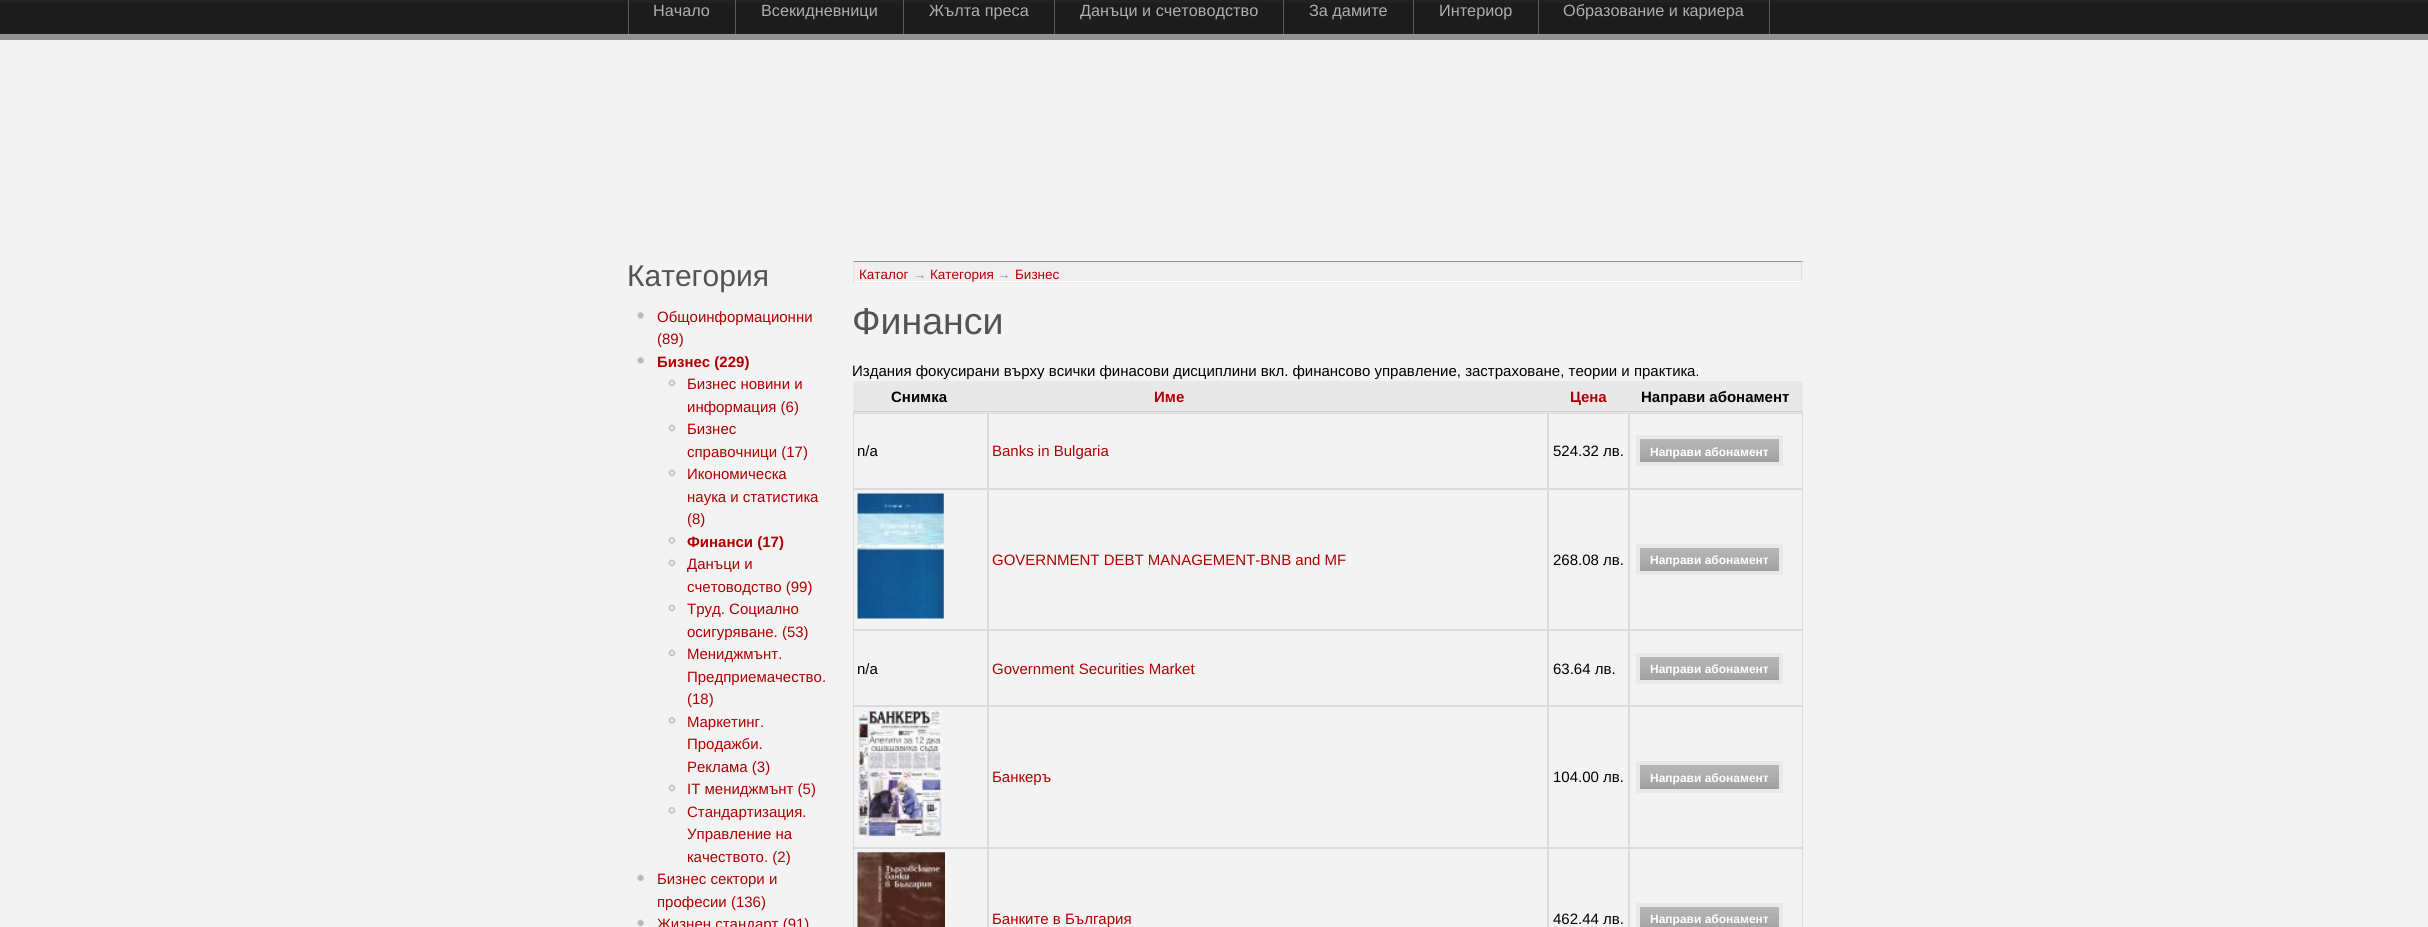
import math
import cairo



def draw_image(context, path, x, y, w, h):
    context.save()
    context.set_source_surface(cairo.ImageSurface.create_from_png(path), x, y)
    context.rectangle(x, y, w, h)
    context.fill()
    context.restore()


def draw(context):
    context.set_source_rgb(243 / 255, 243 / 255, 243 / 255)
    context.paint()
    context.set_source_rgb(29 / 255, 29 / 255, 29 / 255)
    context.rectangle(0, 3, 2428, 31)
    context.fill()
    context.set_source_rgb(34 / 255, 34 / 255, 34 / 255)
    context.rectangle(0, 0, 2428, 3)
    context.fill()
    context.set_source_rgb(146 / 255, 146 / 255, 146 / 255)
    context.rectangle(0, 34, 2428, 6)
    context.fill()
    context.set_source_rgb(91 / 255, 91 / 255, 91 / 255)
    context.rectangle(628, 0, 1, 34)
    context.fill()
    context.rectangle(735, 0, 1, 34)
    context.fill()
    context.rectangle(903, 0, 1, 34)
    context.fill()
    context.rectangle(1054, 0, 1, 34)
    context.fill()
    context.rectangle(1283, 0, 1, 34)
    context.fill()
    context.rectangle(1413, 0, 1, 34)
    context.fill()
    context.rectangle(1769, 0, 1, 34)
    context.fill()
    context.rectangle(1538, 0, 1, 34)
    context.fill()
    draw_image(context, "images/1.png", 637, 312, 7, 7)
    draw_image(context, "images/1.png", 637, 357, 7, 7)
    draw_image(context, "images/2.png", 668, 379, 8, 8)
    draw_image(context, "images/3.png", 668, 424, 8, 8)
    draw_image(context, "images/2.png", 668, 469, 8, 8)
    draw_image(context, "images/4.png", 668, 537, 8, 7)
    draw_image(context, "images/2.png", 668, 559, 8, 8)
    draw_image(context, "images/2.png", 668, 604, 8, 8)
    draw_image(context, "images/2.png", 668, 649, 8, 8)
    draw_image(context, "images/4.png", 668, 717, 8, 7)
    draw_image(context, "images/2.png", 668, 784, 8, 8)
    draw_image(context, "images/4.png", 668, 807, 8, 7)
    draw_image(context, "images/5.png", 637, 874, 7, 8)
    draw_image(context, "images/5.png", 637, 919, 7, 8)
    context.set_source_rgb(239 / 255, 239 / 255, 239 / 255)
    context.rectangle(854, 262, 949, 21)
    context.fill()
    context.set_source_rgb(146 / 255, 146 / 255, 146 / 255)
    context.rectangle(853, 261, 950, 1)
    context.fill()
    context.set_source_rgb(226 / 255, 226 / 255, 226 / 255)
    context.rectangle(1801, 261, 1, 22)
    context.fill()
    context.set_source_rgb(1, 1, 1)
    context.rectangle(853, 281, 950, 1)
    context.fill()
    context.set_source_rgb(226 / 255, 226 / 255, 226 / 255)
    context.rectangle(853, 261, 1, 22)
    context.fill()
    context.set_source_rgb(232 / 255, 232 / 255, 232 / 255)
    context.rectangle(853, 381, 950, 32)
    context.fill()
    context.set_source_rgb(207 / 255, 207 / 255, 207 / 255)
    context.rectangle(853, 411, 950, 1)
    context.fill()
    context.rectangle(853.5, 413.5, 134, 75)
    context.set_source_rgb(219 / 255, 219 / 255, 219 / 255)
    context.set_line_width(1)
    context.stroke()
    context.rectangle(988.5, 413.5, 559, 75)
    context.stroke()
    context.rectangle(1548.5, 413.5, 80, 75)
    context.stroke()
    context.rectangle(1629.5, 413.5, 173, 75)
    context.stroke()
    context.set_source_rgb(158 / 255, 158 / 255, 158 / 255)
    context.rectangle(1640, 461, 139, 1)
    context.fill()
    draw_image(context, "images/6.png", 1640, 439, 139, 22)
    context.rectangle(1638, 437, 143, 27)
    context.set_source_rgb(233 / 255, 233 / 255, 233 / 255)
    context.set_line_width(4)
    context.stroke()
    context.rectangle(853.5, 489.5, 134, 140)
    context.set_source_rgb(219 / 255, 219 / 255, 219 / 255)
    context.set_line_width(1)
    context.stroke()
    draw_image(context, "images/7.png", 857, 493, 87, 126)
    context.rectangle(988.5, 489.5, 559, 140)
    context.stroke()
    context.rectangle(1548.5, 489.5, 80, 140)
    context.stroke()
    context.rectangle(1629.5, 489.5, 173, 140)
    context.stroke()
    context.set_source_rgb(158 / 255, 158 / 255, 158 / 255)
    context.rectangle(1640, 570, 139, 1)
    context.fill()
    draw_image(context, "images/8.png", 1640, 548, 139, 22)
    context.rectangle(1638, 546, 143, 27)
    context.set_source_rgb(233 / 255, 233 / 255, 233 / 255)
    context.set_line_width(4)
    context.stroke()
    context.rectangle(853.5, 630.5, 134, 75)
    context.set_source_rgb(219 / 255, 219 / 255, 219 / 255)
    context.set_line_width(1)
    context.stroke()
    context.rectangle(988.5, 630.5, 559, 75)
    context.stroke()
    context.rectangle(1548.5, 630.5, 80, 75)
    context.stroke()
    context.rectangle(1629.5, 630.5, 173, 75)
    context.stroke()
    context.set_source_rgb(158 / 255, 158 / 255, 158 / 255)
    context.rectangle(1640, 679, 139, 1)
    context.fill()
    draw_image(context, "images/9.png", 1640, 657, 139, 22)
    context.rectangle(1638, 655, 143, 27)
    context.set_source_rgb(233 / 255, 233 / 255, 233 / 255)
    context.set_line_width(4)
    context.stroke()
    context.rectangle(853.5, 706.5, 134, 141)
    context.set_source_rgb(219 / 255, 219 / 255, 219 / 255)
    context.set_line_width(1)
    context.stroke()
    draw_image(context, "images/10.png", 857, 711, 85, 125)
    context.rectangle(988.5, 706.5, 559, 141)
    context.stroke()
    context.rectangle(1548.5, 706.5, 80, 141)
    context.stroke()
    context.rectangle(1629.5, 706.5, 173, 141)
    context.stroke()
    context.set_source_rgb(158 / 255, 158 / 255, 158 / 255)
    context.rectangle(1640, 787, 139, 2)
    context.fill()
    draw_image(context, "images/11.png", 1640, 765, 139, 22)
    context.rectangle(1638, 763, 143, 28)
    context.set_source_rgb(233 / 255, 233 / 255, 233 / 255)
    context.set_line_width(4)
    context.stroke()
    context.rectangle(853.5, 848.5, 134, 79)
    context.set_source_rgb(219 / 255, 219 / 255, 219 / 255)
    context.set_line_width(1)
    context.stroke()
    draw_image(context, "images/12.png", 857, 852, 88, 75)
    context.rectangle(988.5, 848.5, 559, 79)
    context.stroke()
    context.rectangle(1548.5, 848.5, 80, 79)
    context.stroke()
    context.rectangle(1629.5, 848.5, 173, 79)
    context.stroke()
    draw_image(context, "images/13.png", 1640, 907, 139, 20)
    context.rectangle(1638, 905, 143, 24)
    context.set_source_rgb(233 / 255, 233 / 255, 233 / 255)
    context.set_line_width(4)
    context.stroke()
    context.select_font_face("Liberation Sans")
    context.set_font_size(16.25)
    context.set_source_rgb(174 / 255, 174 / 255, 174 / 255)
    context.move_to(653, 16)
    context.show_text("Начало")
    context.move_to(761, 16)
    context.show_text("Всекидневници")
    context.move_to(929, 16)
    context.show_text("Жълта преса")
    context.move_to(1080, 16)
    context.show_text("Данъци и счетоводство")
    context.move_to(1309, 16)
    context.show_text("За дамите")
    context.move_to(1439, 16)
    context.show_text("Интериор")
    context.move_to(1563, 16)
    context.show_text("Образование и кариера")
    context.set_font_size(30)
    context.set_source_rgb(83 / 255, 83 / 255, 83 / 255)
    context.move_to(627, 286)
    context.show_text("Категория")
    context.set_font_size(15)
    context.set_source_rgb(175 / 255, 0, 0)
    context.move_to(657, 322)
    context.show_text("Общоинформационни")
    context.move_to(657, 344)
    context.show_text("(89)")
    context.select_font_face("Liberation Sans", cairo.FontSlant.NORMAL, cairo.FontWeight.BOLD)
    context.move_to(657, 367)
    context.show_text("Бизнес (229)")
    context.select_font_face("Liberation Sans")
    context.move_to(687, 389)
    context.show_text("Бизнес новини и")
    context.move_to(687, 412)
    context.show_text("информация (6)")
    context.move_to(687, 434)
    context.show_text("Бизнес")
    context.move_to(687, 457)
    context.show_text("справочници (17)")
    context.move_to(687, 479)
    context.show_text("Икономическа")
    context.move_to(687, 502)
    context.show_text("наука и статистика")
    context.move_to(687, 524)
    context.show_text("(8)")
    context.select_font_face("Liberation Sans", cairo.FontSlant.NORMAL, cairo.FontWeight.BOLD)
    context.move_to(687, 547)
    context.show_text("Финанси (17)")
    context.select_font_face("Liberation Sans")
    context.move_to(687, 569)
    context.show_text("Данъци и")
    context.move_to(687, 592)
    context.show_text("счетоводство (99)")
    context.move_to(687, 614)
    context.show_text("Труд. Социално")
    context.move_to(687, 637)
    context.show_text("осигуряване. (53)")
    context.move_to(687, 659)
    context.show_text("Мениджмънт.")
    context.move_to(687, 682)
    context.show_text("Предприемачество.")
    context.move_to(687, 704)
    context.show_text("(18)")
    context.move_to(687, 727)
    context.show_text("Маркетинг.")
    context.move_to(687, 749)
    context.show_text("Продажби.")
    context.move_to(687, 772)
    context.show_text("Реклама (3)")
    context.move_to(687, 794)
    context.show_text("IT мениджмънт (5)")
    context.move_to(687, 817)
    context.show_text("Стандартизация.")
    context.move_to(687, 839)
    context.show_text("Управление на")
    context.move_to(687, 862)
    context.show_text("качеството. (2)")
    context.move_to(657, 884)
    context.show_text("Бизнес сектори и")
    context.move_to(657, 907)
    context.show_text("професии (136)")
    context.move_to(657, 929)
    context.show_text("Жизнен стандарт (91)")
    context.set_font_size(13.5)
    context.move_to(859, 279)
    context.show_text("Каталог")
    context.set_source_rgb(142 / 255, 142 / 255, 142 / 255)
    context.move_to(913, 279)
    context.show_text("→")
    context.set_source_rgb(175 / 255, 0, 0)
    context.move_to(930, 279)
    context.show_text("Категория")
    context.set_source_rgb(142 / 255, 142 / 255, 142 / 255)
    context.move_to(997, 279)
    context.show_text("→")
    context.set_source_rgb(175 / 255, 0, 0)
    context.move_to(1015, 279)
    context.show_text("Бизнес")
    context.set_font_size(37.5)
    context.set_source_rgb(83 / 255, 83 / 255, 83 / 255)
    context.move_to(852, 334)
    context.show_text("Финанси")
    context.set_font_size(15)
    context.set_source_rgb(0, 0, 0)
    context.move_to(852, 376)
    context.show_text("Издания фокусирани върху всички финасови дисциплини вкл. финансово управление, застраховане, теории и практика.")
    context.select_font_face("Liberation Sans", cairo.FontSlant.NORMAL, cairo.FontWeight.BOLD)
    context.move_to(891, 402)
    context.show_text("Снимка")
    context.set_source_rgb(175 / 255, 0, 0)
    context.move_to(1154, 402)
    context.show_text("Име")
    context.move_to(1570, 402)
    context.show_text("Цена")
    context.set_source_rgb(0, 0, 0)
    context.move_to(1641, 402)
    context.show_text("Направи абонамент")
    context.select_font_face("Liberation Sans")
    context.move_to(857, 456)
    context.show_text("n/a")
    context.set_source_rgb(175 / 255, 0, 0)
    context.move_to(992, 456)
    context.show_text("Banks in Bulgaria")
    context.set_source_rgb(0, 0, 0)
    context.move_to(1553, 456)
    context.show_text("524.32 лв.")
    context.select_font_face("Liberation Sans", cairo.FontSlant.NORMAL, cairo.FontWeight.BOLD)
    context.set_font_size(12)
    context.set_source_rgb(1, 1, 1)
    context.move_to(1650, 456)
    context.show_text("Направи абонамент")
    context.select_font_face("Liberation Sans")
    context.set_font_size(15)
    context.set_source_rgb(175 / 255, 0, 0)
    context.move_to(992, 565)
    context.show_text("GOVERNMENT DEBT MANAGEMENT-BNB and MF")
    context.set_source_rgb(0, 0, 0)
    context.move_to(1553, 565)
    context.show_text("268.08 лв.")
    context.select_font_face("Liberation Sans", cairo.FontSlant.NORMAL, cairo.FontWeight.BOLD)
    context.set_font_size(12)
    context.set_source_rgb(1, 1, 1)
    context.move_to(1650, 564)
    context.show_text("Направи абонамент")
    context.select_font_face("Liberation Sans")
    context.set_font_size(15)
    context.set_source_rgb(0, 0, 0)
    context.move_to(857, 674)
    context.show_text("n/a")
    context.set_source_rgb(175 / 255, 0, 0)
    context.move_to(992, 674)
    context.show_text("Government Securities Market")
    context.set_source_rgb(0, 0, 0)
    context.move_to(1553, 674)
    context.show_text("63.64 лв.")
    context.select_font_face("Liberation Sans", cairo.FontSlant.NORMAL, cairo.FontWeight.BOLD)
    context.set_font_size(12)
    context.set_source_rgb(1, 1, 1)
    context.move_to(1650, 673)
    context.show_text("Направи абонамент")
    context.select_font_face("Liberation Sans")
    context.set_font_size(15)
    context.set_source_rgb(175 / 255, 0, 0)
    context.move_to(992, 782)
    context.show_text("Банкеръ")
    context.set_source_rgb(0, 0, 0)
    context.move_to(1553, 782)
    context.show_text("104.00 лв.")
    context.select_font_face("Liberation Sans", cairo.FontSlant.NORMAL, cairo.FontWeight.BOLD)
    context.set_font_size(12)
    context.set_source_rgb(1, 1, 1)
    context.move_to(1650, 782)
    context.show_text("Направи абонамент")
    context.select_font_face("Liberation Sans")
    context.set_font_size(15)
    context.set_source_rgb(175 / 255, 0, 0)
    context.move_to(992, 924)
    context.show_text("Банките в България")
    context.set_source_rgb(0, 0, 0)
    context.move_to(1553, 924)
    context.show_text("462.44 лв.")
    context.select_font_face("Liberation Sans", cairo.FontSlant.NORMAL, cairo.FontWeight.BOLD)
    context.set_font_size(12)
    context.set_source_rgb(1, 1, 1)
    context.move_to(1650, 923)
    context.show_text("Направи абонамент")


surface = cairo.ImageSurface(cairo.Format.RGB24, 2428, 927)
context = cairo.Context(surface)
options = cairo.FontOptions()
options.set_hint_metrics(cairo.HintMetrics.OFF)
options.set_hint_style(cairo.HintStyle.NONE)
context.set_font_options(options)
context.set_miter_limit(4)
draw(context)
surface.write_to_png("out.png")
